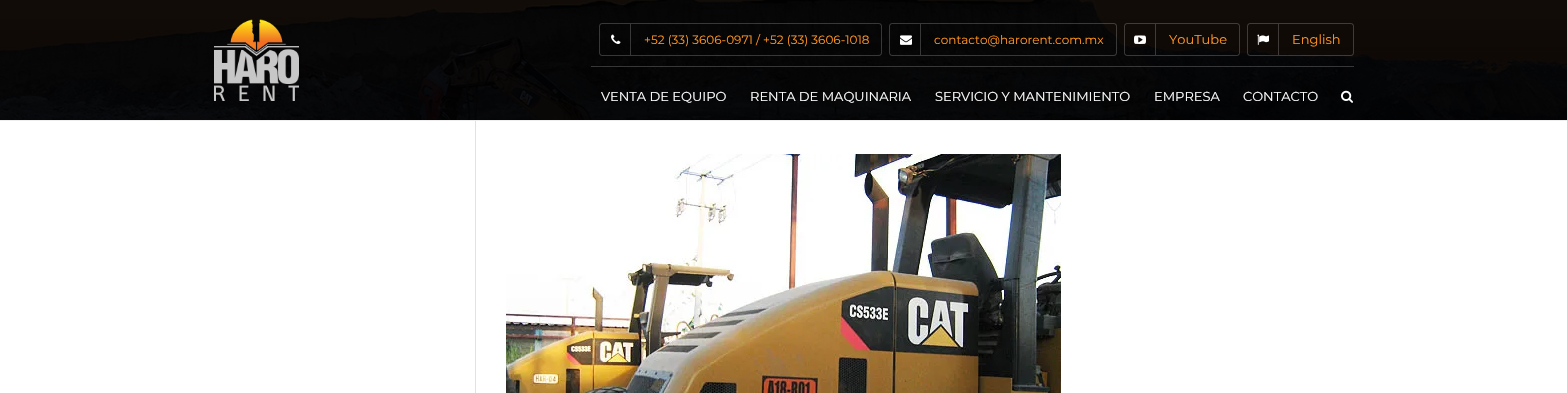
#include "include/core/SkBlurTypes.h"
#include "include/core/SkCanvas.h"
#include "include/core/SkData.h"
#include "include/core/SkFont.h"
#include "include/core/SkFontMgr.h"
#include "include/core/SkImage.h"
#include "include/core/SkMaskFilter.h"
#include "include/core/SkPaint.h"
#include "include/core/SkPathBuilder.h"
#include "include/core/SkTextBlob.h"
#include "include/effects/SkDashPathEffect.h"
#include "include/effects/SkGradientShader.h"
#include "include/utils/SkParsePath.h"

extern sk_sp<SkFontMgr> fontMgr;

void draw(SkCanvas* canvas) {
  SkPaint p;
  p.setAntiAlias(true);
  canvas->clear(SK_ColorWHITE);
  canvas->drawImageRect(SkImages::DeferredFromEncodedData(SkData::MakeFromFileName("images/1.png")), SkRect::MakeLTRB(0, 0, 1567, 120), SkSamplingOptions());
  p.setColor(SkColorSetRGB(238, 238, 238));
  canvas->drawRect(SkRect::MakeLTRB(0, 120, 1567, 121), p);
  p.setColor(SkColorSetRGB(225, 226, 226));
  canvas->drawRect(SkRect::MakeLTRB(475, 121, 476, 393), p);
  canvas->drawImageRect(SkImages::DeferredFromEncodedData(SkData::MakeFromFileName("images/2.png")), SkRect::MakeLTRB(506, 154, 1061, 393), SkSamplingOptions());
  canvas->drawImageRect(SkImages::DeferredFromEncodedData(SkData::MakeFromFileName("images/3.png")), SkRect::MakeLTRB(214, 19, 299, 101), SkSamplingOptions());
  p.setColor(SkColorSetARGB(51, 255, 255, 255));
  canvas->drawRect(SkRect::MakeLTRB(591, 66, 1354, 67), p);
  p.setStyle(SkPaint::kStroke_Style);
  p.setStrokeWidth(1);
  canvas->drawRoundRect(SkRect::MakeLTRB(599.5f, 23.5f, 881.5f, 55.5f), 2.5f, 2.5f, p);
  canvas->drawImageRect(SkImages::DeferredFromEncodedData(SkData::MakeFromFileName("images/4.png")), SkRect::MakeLTRB(611, 34, 621, 44), SkSamplingOptions());
  p.setStyle(SkPaint::kFill_Style);
  canvas->drawRect(SkRect::MakeLTRB(630, 24, 631, 55), p);
  p.setStyle(SkPaint::kStroke_Style);
  canvas->drawRoundRect(SkRect::MakeLTRB(889.5f, 23.5f, 1116.5f, 55.5f), 2.5f, 2.5f, p);
  canvas->drawImageRect(SkImages::DeferredFromEncodedData(SkData::MakeFromFileName("images/5.png")), SkRect::MakeLTRB(900, 35, 912, 45), SkSamplingOptions());
  p.setStyle(SkPaint::kFill_Style);
  p.setColor(SkColorSetRGB(56, 55, 56));
  canvas->drawRect(SkRect::MakeLTRB(920, 24, 921, 55), p);
  p.setStyle(SkPaint::kStroke_Style);
  p.setColor(SkColorSetARGB(51, 255, 255, 255));
  canvas->drawRoundRect(SkRect::MakeLTRB(1124.5f, 23.5f, 1239.5f, 55.5f), 2.5f, 2.5f, p);
  canvas->drawImageRect(SkImages::DeferredFromEncodedData(SkData::MakeFromFileName("images/6.png")), SkRect::MakeLTRB(1134, 35, 1146, 44), SkSamplingOptions());
  p.setStyle(SkPaint::kFill_Style);
  canvas->drawRect(SkRect::MakeLTRB(1155, 24, 1156, 55), p);
  p.setStyle(SkPaint::kStroke_Style);
  canvas->drawRoundRect(SkRect::MakeLTRB(1247.5f, 23.5f, 1353.5f, 55.5f), 2.5f, 2.5f, p);
  canvas->drawImageRect(SkImages::DeferredFromEncodedData(SkData::MakeFromFileName("images/7.png")), SkRect::MakeLTRB(1257, 34, 1269, 45), SkSamplingOptions());
  p.setStyle(SkPaint::kFill_Style);
  p.setColor(SkColorSetRGB(64, 59, 56));
  canvas->drawRect(SkRect::MakeLTRB(1278, 24, 1279, 55), p);
  canvas->drawImageRect(SkImages::DeferredFromEncodedData(SkData::MakeFromFileName("images/8.png")), SkRect::MakeLTRB(1341, 90, 1353, 103), SkSamplingOptions());
  SkFont font1(fontMgr->matchFamilyStyle("Montserrat", SkFontStyle::Normal()), 12);
  font1.setSubpixel(true);
  p.setColor(SkColorSetRGB(255, 147, 31));
  canvas->drawString("+52 (33) 3606-0971 / +52 (33) 3606-1018", 644, 44, font1, p);
  canvas->drawString("contacto@harorent.com.mx", 934, 44, font1, p);
  SkFont font2(fontMgr->matchFamilyStyle("Montserrat", SkFontStyle::Normal()), 13);
  font2.setSubpixel(true);
  canvas->drawString("YouTube", 1169, 44, font2, p);
  canvas->drawString("English", 1292, 44, font2, p);
  p.setColor(SK_ColorWHITE);
  canvas->drawString("VENTA DE EQUIPO", 601, 101, font2, p);
  canvas->drawString("RENTA DE MAQUINARIA", 750, 101, font2, p);
  canvas->drawString("SERVICIO Y MANTENIMIENTO", 935, 101, font2, p);
  canvas->drawString("EMPRESA", 1154, 101, font2, p);
  canvas->drawString("CONTACTO", 1243, 101, font2, p);
}
